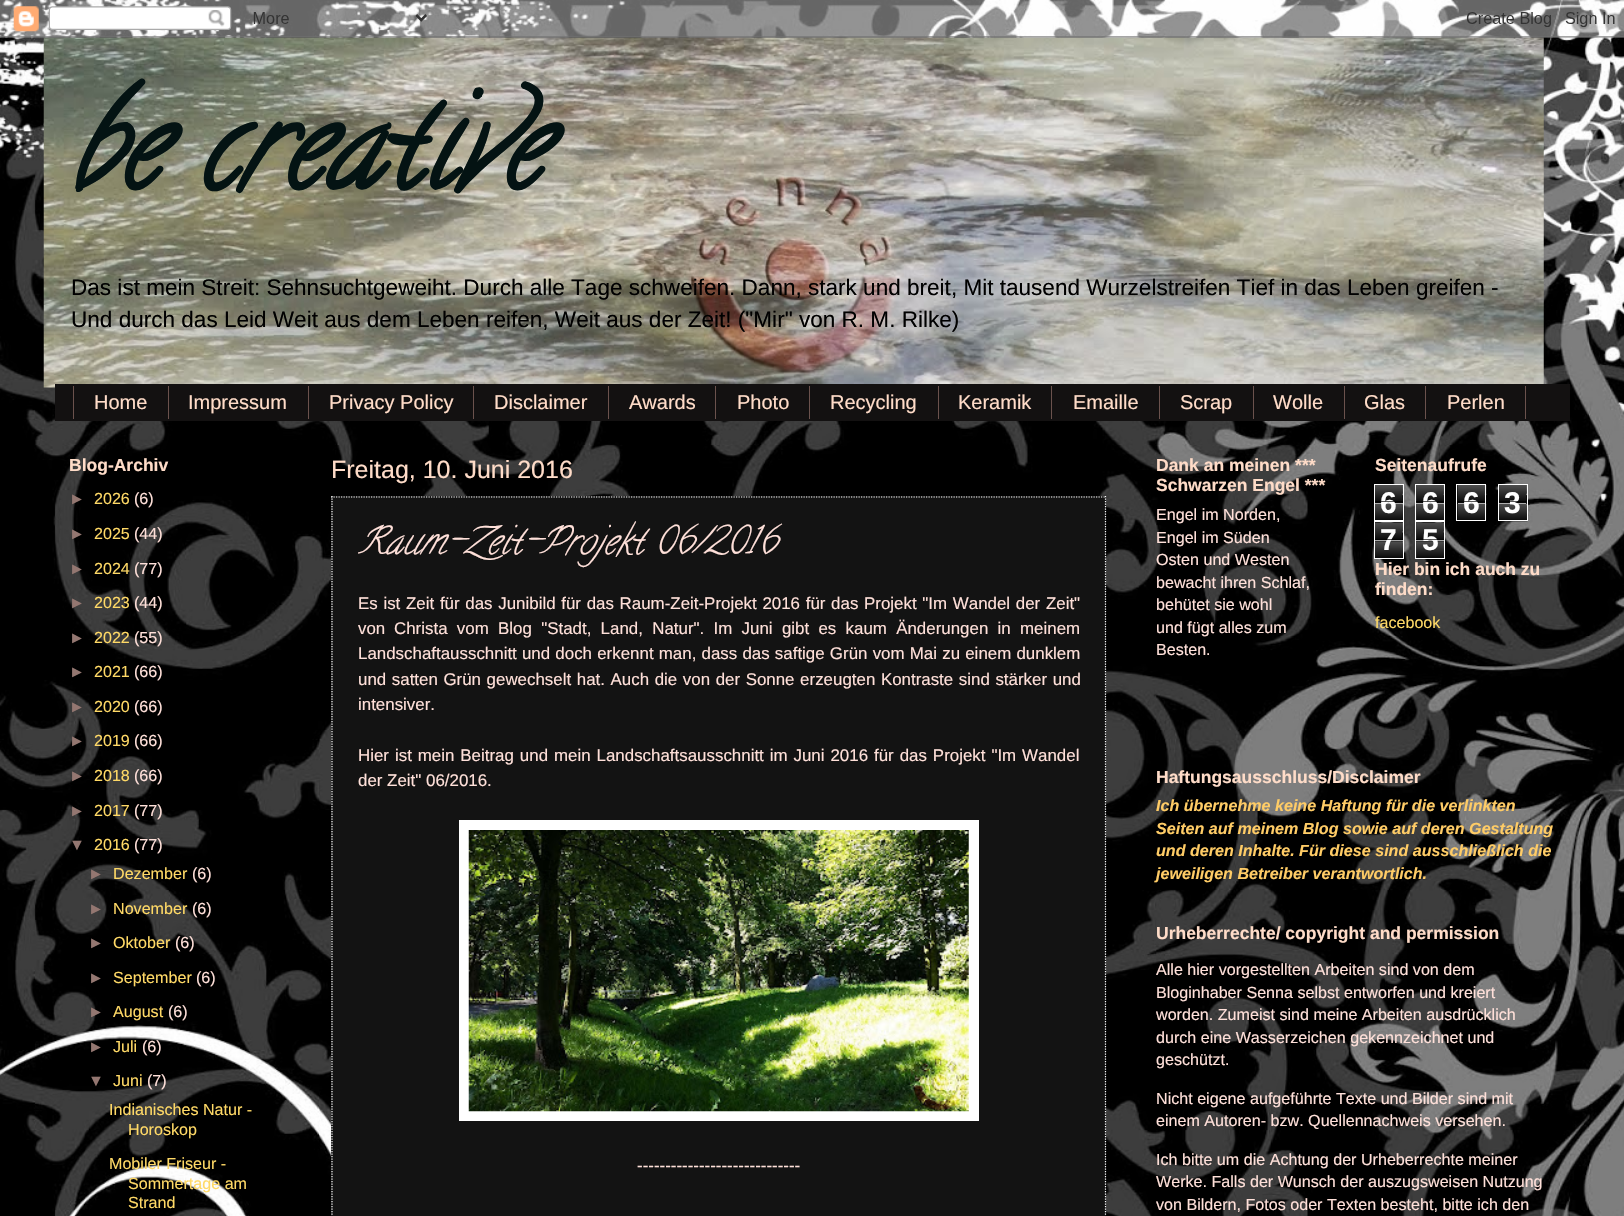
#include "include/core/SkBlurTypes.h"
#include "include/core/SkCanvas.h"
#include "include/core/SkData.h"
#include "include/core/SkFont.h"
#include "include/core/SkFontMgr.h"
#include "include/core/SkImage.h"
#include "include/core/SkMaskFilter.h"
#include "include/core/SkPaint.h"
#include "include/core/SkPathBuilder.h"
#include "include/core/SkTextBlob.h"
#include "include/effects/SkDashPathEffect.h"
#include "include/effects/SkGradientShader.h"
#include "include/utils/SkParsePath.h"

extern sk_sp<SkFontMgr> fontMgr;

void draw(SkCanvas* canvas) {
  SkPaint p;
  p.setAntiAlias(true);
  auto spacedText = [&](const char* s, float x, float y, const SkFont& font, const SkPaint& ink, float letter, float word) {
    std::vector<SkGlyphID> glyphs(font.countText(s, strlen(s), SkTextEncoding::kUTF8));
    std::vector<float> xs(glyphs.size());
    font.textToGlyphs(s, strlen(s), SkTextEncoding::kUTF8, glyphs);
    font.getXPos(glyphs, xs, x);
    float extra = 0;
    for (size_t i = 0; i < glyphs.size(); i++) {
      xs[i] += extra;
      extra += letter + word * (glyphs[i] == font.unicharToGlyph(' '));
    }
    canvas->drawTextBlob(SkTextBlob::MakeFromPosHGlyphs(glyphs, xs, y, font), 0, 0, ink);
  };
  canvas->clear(SK_ColorWHITE);
  canvas->drawImageRect(SkImages::DeferredFromEncodedData(SkData::MakeFromFileName("images/1.png")), SkRect::MakeLTRB(0, 0, 1624, 1216), SkSamplingOptions());
  canvas->drawImageRect(SkImages::DeferredFromEncodedData(SkData::MakeFromFileName("images/3.png")), SkRect::MakeLTRB(43, 37, 1544, 388), SkSamplingOptions());
  canvas->drawImageRect(SkImages::DeferredFromEncodedData(SkData::MakeFromFileName("images/2.png")), SkRect::MakeLTRB(0, 0, 1624, 38), SkSamplingOptions());
  p.setColor(SkColorSetRGB(19, 17, 17));
  canvas->drawRect(SkRect::MakeLTRB(55, 384, 1570, 421), p);
  p.setColor(SkColorSetRGB(107, 82, 77));
  canvas->drawRect(SkRect::MakeLTRB(168, 386, 169, 419), p);
  canvas->drawRect(SkRect::MakeLTRB(73, 386, 74, 419), p);
  canvas->drawRect(SkRect::MakeLTRB(308, 386, 309, 419), p);
  canvas->drawRect(SkRect::MakeLTRB(473, 386, 474, 419), p);
  canvas->drawRect(SkRect::MakeLTRB(608, 386, 609, 419), p);
  canvas->drawRect(SkRect::MakeLTRB(715, 386, 716, 419), p);
  canvas->drawRect(SkRect::MakeLTRB(809, 386, 810, 419), p);
  canvas->drawRect(SkRect::MakeLTRB(938, 386, 939, 419), p);
  canvas->drawRect(SkRect::MakeLTRB(1051, 386, 1052, 419), p);
  canvas->drawRect(SkRect::MakeLTRB(1159, 386, 1160, 419), p);
  canvas->drawRect(SkRect::MakeLTRB(1253, 386, 1254, 419), p);
  canvas->drawRect(SkRect::MakeLTRB(1344, 386, 1345, 419), p);
  canvas->drawRect(SkRect::MakeLTRB(1425, 386, 1426, 419), p);
  canvas->drawRect(SkRect::MakeLTRB(1525, 386, 1526, 419), p);
  p.setColor(SkColorSetRGB(24, 24, 24));
  canvas->drawRect(SkRect::MakeLTRB(331, 496, 1105, 1216), p);
  p.setColor(SkColorSetRGB(19, 19, 19));
  canvas->drawRect(SkRect::MakeLTRB(332, 497, 1106, 1216), p);
  p.setStyle(SkPaint::kStroke_Style);
  p.setStrokeWidth(1.2f);
  p.setColor(SK_ColorWHITE);
  p.setPathEffect(SkDashPathEffect::Make({{1.25f, 1.25f}}, 0));
  canvas->drawPath(SkPathBuilder().moveTo(331, 497).lineTo(1106, 497).detach(), p);
  p.setPathEffect(nullptr);
  p.setPathEffect(SkDashPathEffect::Make({{1.25f, 1.25f}}, 0));
  canvas->drawPath(SkPathBuilder().moveTo(1105.5f, 496).lineTo(1105.5f, 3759).detach(), p);
  p.setPathEffect(nullptr);
  p.setPathEffect(SkDashPathEffect::Make({{1.25f, 1.25f}}, 0));
  canvas->drawPath(SkPathBuilder().moveTo(332, 496).lineTo(332, 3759).detach(), p);
  p.setPathEffect(nullptr);
  p.setStyle(SkPaint::kFill_Style);
  canvas->drawRect(SkRect::MakeLTRB(459, 820, 979, 1121), p);
  canvas->drawImageRect(SkImages::DeferredFromEncodedData(SkData::MakeFromFileName("images/4.png")), SkRect::MakeLTRB(468, 830, 969, 1112), SkSamplingOptions());
  canvas->drawImageRect(SkImages::DeferredFromEncodedData(SkData::MakeFromFileName("images/5.png")), SkRect::MakeLTRB(1375, 485, 1403, 520), SkSamplingOptions());
  p.setStyle(SkPaint::kStroke_Style);
  p.setStrokeWidth(1);
  canvas->drawRect(SkRect::MakeLTRB(1374.5f, 484.5f, 1403.5f, 520.5f), p);
  canvas->drawImageRect(SkImages::DeferredFromEncodedData(SkData::MakeFromFileName("images/6.png")), SkRect::MakeLTRB(1416, 485, 1444, 520), SkSamplingOptions());
  canvas->drawRect(SkRect::MakeLTRB(1415.5f, 484.5f, 1444.5f, 520.5f), p);
  canvas->drawImageRect(SkImages::DeferredFromEncodedData(SkData::MakeFromFileName("images/7.png")), SkRect::MakeLTRB(1457, 485, 1487, 521), SkSamplingOptions());
  canvas->drawRect(SkRect::MakeLTRB(1456.5f, 484.5f, 1485.5f, 520.5f), p);
  canvas->drawImageRect(SkImages::DeferredFromEncodedData(SkData::MakeFromFileName("images/8.png")), SkRect::MakeLTRB(1498, 485, 1528, 522), SkSamplingOptions());
  canvas->drawRect(SkRect::MakeLTRB(1498.5f, 484.5f, 1527.5f, 520.5f), p);
  canvas->drawImageRect(SkImages::DeferredFromEncodedData(SkData::MakeFromFileName("images/9.png")), SkRect::MakeLTRB(1375, 522, 1403, 558), SkSamplingOptions());
  canvas->drawRect(SkRect::MakeLTRB(1374.5f, 521.5f, 1403.5f, 558.5f), p);
  canvas->drawImageRect(SkImages::DeferredFromEncodedData(SkData::MakeFromFileName("images/10.png")), SkRect::MakeLTRB(1416, 522, 1444, 558), SkSamplingOptions());
  canvas->drawRect(SkRect::MakeLTRB(1415.5f, 521.5f, 1444.5f, 558.5f), p);
  SkFont font1(fontMgr->matchFamilyStyle("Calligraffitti", SkFontStyle::BoldItalic()), 125);
  font1.setSubpixel(true);
  p.setStyle(SkPaint::kFill_Style);
  p.setColor(SkColorSetRGB(4, 19, 19));
  canvas->drawString("be creative", 69, 185, font1, p);
  SkFont font2(fontMgr->matchFamilyStyle("Liberation Sans", SkFontStyle::Normal()), 22.55f);
  font2.setSubpixel(true);
  p.setColor(SK_ColorBLACK);
  canvas->drawString("Das ist mein Streit: Sehnsuchtgeweiht. Durch alle Tage schweifen. Dann, stark und breit, Mit tausend Wurzelstreifen Tief in das Leben greifen -", 71, 295, font2, p);
  canvas->drawString("Und durch das Leid Weit aus dem Leben reifen, Weit aus der Zeit! (\"Mir\" von R. M. Rilke)", 71, 327, font2, p);
  SkFont font3(fontMgr->matchFamilyStyle("Liberation Sans", SkFontStyle::Normal()), 20);
  font3.setSubpixel(true);
  p.setColor(SkColorSetRGB(255, 220, 200));
  canvas->drawString("Home", 94, 409, font3, p);
  canvas->drawString("Impressum", 188, 409, font3, p);
  canvas->drawString("Privacy Policy", 329, 409, font3, p);
  canvas->drawString("Disclaimer", 494, 409, font3, p);
  canvas->drawString("Awards", 629, 409, font3, p);
  canvas->drawString("Photo", 737, 409, font3, p);
  canvas->drawString("Recycling", 830, 409, font3, p);
  canvas->drawString("Keramik", 958, 409, font3, p);
  canvas->drawString("Emaille", 1073, 409, font3, p);
  canvas->drawString("Scrap", 1180, 409, font3, p);
  canvas->drawString("Wolle", 1273, 409, font3, p);
  canvas->drawString("Glas", 1364, 409, font3, p);
  canvas->drawString("Perlen", 1447, 409, font3, p);
  SkFont font4(fontMgr->matchFamilyStyle("Liberation Sans", SkFontStyle::Bold()), 17.5f);
  font4.setSubpixel(true);
  canvas->drawString("Blog-Archiv", 69, 471, font4, p);
  SkFont font5(fontMgr->matchFamilyStyle("Liberation Sans", SkFontStyle::Normal()), 16.1f);
  font5.setSubpixel(true);
  p.setColor(SkColorSetRGB(148, 119, 113));
  canvas->drawString("►", 69, 504, font5, p);
  p.setColor(SkColorSetRGB(255, 217, 102));
  canvas->drawString("2026", 94, 504, font5, p);
  p.setColor(SkColorSetRGB(255, 224, 217));
  canvas->drawString("(6)", 134, 504, font5, p);
  p.setColor(SkColorSetRGB(148, 119, 113));
  canvas->drawString("►", 69, 539, font5, p);
  p.setColor(SkColorSetRGB(255, 217, 102));
  canvas->drawString("2025", 94, 539, font5, p);
  p.setColor(SkColorSetRGB(255, 224, 217));
  canvas->drawString("(44)", 134, 539, font5, p);
  p.setColor(SkColorSetRGB(148, 119, 113));
  canvas->drawString("►", 69, 574, font5, p);
  p.setColor(SkColorSetRGB(255, 217, 102));
  canvas->drawString("2024", 94, 574, font5, p);
  p.setColor(SkColorSetRGB(255, 224, 217));
  canvas->drawString("(77)", 134, 574, font5, p);
  p.setColor(SkColorSetRGB(148, 119, 113));
  canvas->drawString("►", 69, 608, font5, p);
  p.setColor(SkColorSetRGB(255, 217, 102));
  canvas->drawString("2023", 94, 608, font5, p);
  p.setColor(SkColorSetRGB(255, 224, 217));
  canvas->drawString("(44)", 134, 608, font5, p);
  p.setColor(SkColorSetRGB(148, 119, 113));
  canvas->drawString("►", 69, 643, font5, p);
  p.setColor(SkColorSetRGB(255, 217, 102));
  canvas->drawString("2022", 94, 643, font5, p);
  p.setColor(SkColorSetRGB(255, 224, 217));
  canvas->drawString("(55)", 134, 643, font5, p);
  p.setColor(SkColorSetRGB(148, 119, 113));
  canvas->drawString("►", 69, 677, font5, p);
  p.setColor(SkColorSetRGB(255, 217, 102));
  canvas->drawString("2021", 94, 677, font5, p);
  p.setColor(SkColorSetRGB(255, 224, 217));
  canvas->drawString("(66)", 134, 677, font5, p);
  p.setColor(SkColorSetRGB(148, 119, 113));
  canvas->drawString("►", 69, 712, font5, p);
  p.setColor(SkColorSetRGB(255, 217, 102));
  canvas->drawString("2020", 94, 712, font5, p);
  p.setColor(SkColorSetRGB(255, 224, 217));
  canvas->drawString("(66)", 134, 712, font5, p);
  p.setColor(SkColorSetRGB(148, 119, 113));
  canvas->drawString("►", 69, 746, font5, p);
  p.setColor(SkColorSetRGB(255, 217, 102));
  canvas->drawString("2019", 94, 746, font5, p);
  p.setColor(SkColorSetRGB(255, 224, 217));
  canvas->drawString("(66)", 134, 746, font5, p);
  p.setColor(SkColorSetRGB(148, 119, 113));
  canvas->drawString("►", 69, 781, font5, p);
  p.setColor(SkColorSetRGB(255, 217, 102));
  canvas->drawString("2018", 94, 781, font5, p);
  p.setColor(SkColorSetRGB(255, 224, 217));
  canvas->drawString("(66)", 134, 781, font5, p);
  p.setColor(SkColorSetRGB(148, 119, 113));
  canvas->drawString("►", 69, 816, font5, p);
  p.setColor(SkColorSetRGB(255, 217, 102));
  canvas->drawString("2017", 94, 816, font5, p);
  p.setColor(SkColorSetRGB(255, 224, 217));
  canvas->drawString("(77)", 134, 816, font5, p);
  p.setColor(SkColorSetRGB(148, 119, 113));
  canvas->drawString("▼", 69, 850, font5, p);
  p.setColor(SkColorSetRGB(255, 217, 102));
  canvas->drawString("2016", 94, 850, font5, p);
  p.setColor(SkColorSetRGB(255, 224, 217));
  canvas->drawString("(77)", 134, 850, font5, p);
  p.setColor(SkColorSetRGB(148, 119, 113));
  canvas->drawString("►", 88, 879, font5, p);
  p.setColor(SkColorSetRGB(255, 217, 102));
  canvas->drawString("Dezember", 113, 879, font5, p);
  p.setColor(SkColorSetRGB(255, 224, 217));
  canvas->drawString("(6)", 192, 879, font5, p);
  p.setColor(SkColorSetRGB(148, 119, 113));
  canvas->drawString("►", 88, 914, font5, p);
  p.setColor(SkColorSetRGB(255, 217, 102));
  canvas->drawString("November", 113, 914, font5, p);
  p.setColor(SkColorSetRGB(255, 224, 217));
  canvas->drawString("(6)", 192, 914, font5, p);
  p.setColor(SkColorSetRGB(148, 119, 113));
  canvas->drawString("►", 88, 948, font5, p);
  p.setColor(SkColorSetRGB(255, 217, 102));
  canvas->drawString("Oktober", 113, 948, font5, p);
  p.setColor(SkColorSetRGB(255, 224, 217));
  canvas->drawString("(6)", 175, 948, font5, p);
  p.setColor(SkColorSetRGB(148, 119, 113));
  canvas->drawString("►", 88, 983, font5, p);
  p.setColor(SkColorSetRGB(255, 217, 102));
  canvas->drawString("September", 113, 983, font5, p);
  p.setColor(SkColorSetRGB(255, 224, 217));
  canvas->drawString("(6)", 196, 983, font5, p);
  p.setColor(SkColorSetRGB(148, 119, 113));
  canvas->drawString("►", 88, 1017, font5, p);
  p.setColor(SkColorSetRGB(255, 217, 102));
  canvas->drawString("August", 113, 1017, font5, p);
  p.setColor(SkColorSetRGB(255, 224, 217));
  canvas->drawString("(6)", 168, 1017, font5, p);
  p.setColor(SkColorSetRGB(148, 119, 113));
  canvas->drawString("►", 88, 1052, font5, p);
  p.setColor(SkColorSetRGB(255, 217, 102));
  canvas->drawString("Juli", 113, 1052, font5, p);
  p.setColor(SkColorSetRGB(255, 224, 217));
  canvas->drawString("(6)", 142, 1052, font5, p);
  p.setColor(SkColorSetRGB(148, 119, 113));
  canvas->drawString("▼", 88, 1086, font5, p);
  p.setColor(SkColorSetRGB(255, 217, 102));
  canvas->drawString("Juni", 113, 1086, font5, p);
  p.setColor(SkColorSetRGB(255, 224, 217));
  canvas->drawString("(7)", 147, 1086, font5, p);
  p.setColor(SkColorSetRGB(255, 217, 102));
  canvas->drawString("Indianisches Natur -", 109, 1115, font5, p);
  canvas->drawString("Horoskop", 128, 1135, font5, p);
  canvas->drawString("Mobiler Friseur -", 109, 1169, font5, p);
  canvas->drawString("Sommertage am", 128, 1189, font5, p);
  canvas->drawString("Strand", 128, 1208, font5, p);
  SkFont font6(fontMgr->matchFamilyStyle("Liberation Sans", SkFontStyle::Normal()), 25);
  font6.setSubpixel(true);
  p.setColor(SkColorSetRGB(255, 220, 200));
  canvas->drawString("Freitag, 10. Juni 2016", 331, 478, font6, p);
  SkFont font7(fontMgr->matchFamilyStyle("Calligraffitti", SkFontStyle::Italic()), 37.5f);
  font7.setSubpixel(true);
  p.setColor(SkColorSetRGB(255, 224, 217));
  canvas->drawString("Raum-Zeit-Projekt 06/2016", 358, 553, font7, p);
  SkFont font8(fontMgr->matchFamilyStyle("Liberation Sans", SkFontStyle::Normal()), 16.9f);
  font8.setSubpixel(true);
  spacedText("Es ist Zeit für das Junibild für das Raum-Zeit-Projekt 2016 für das Projekt \"Im Wandel der Zeit\"", 358, 609, font8, p, 0, 1);
  canvas->drawString("von", 358, 634, font8, p);
  spacedText("Christa vom Blog \"Stadt, Land, Natur\". Im Juni gibt es kaum Änderungen in meinem", 394, 634, font8, p, 0, 4.6f);
  spacedText("Landschaftausschnitt und doch erkennt man, dass das saftige Grün vom Mai zu einem dunklem", 358, 659, font8, p, 0, 0.5f);
  spacedText("und satten Grün gewechselt hat. Auch die von der Sonne erzeugten Kontraste sind stärker und", 358, 685, font8, p, 0, 0.9f);
  canvas->drawString("intensiver.", 358, 710, font8, p);
  spacedText("Hier ist mein Beitrag und mein Landschaftsausschnitt im Juni 2016 für das Projekt \"Im Wandel", 358, 761, font8, p, 0, 1.25f);
  canvas->drawString("der Zeit\" 06/2016.", 358, 786, font8, p);
  canvas->drawString("-----------------------------", 637, 1171, font8, p);
  p.setColor(SkColorSetRGB(255, 220, 200));
  canvas->drawString("Dank an meinen ***", 1156, 471, font4, p);
  canvas->drawString("Schwarzen Engel ***", 1156, 491, font4, p);
  p.setColor(SkColorSetRGB(255, 224, 217));
  canvas->drawString("Engel im Norden,", 1156, 520, font5, p);
  canvas->drawString("Engel im Süden", 1156, 543, font5, p);
  canvas->drawString("Osten und Westen", 1156, 565, font5, p);
  canvas->drawString("bewacht ihren Schlaf,", 1156, 588, font5, p);
  canvas->drawString("behütet sie wohl", 1156, 610, font5, p);
  canvas->drawString("und fügt alles zum", 1156, 633, font5, p);
  canvas->drawString("Besten.", 1156, 655, font5, p);
  p.setColor(SkColorSetRGB(255, 220, 200));
  canvas->drawString("Seitenaufrufe", 1375, 471, font4, p);
  SkFont font9(fontMgr->matchFamilyStyle("Liberation Sans", SkFontStyle::Bold()), 30);
  font9.setSubpixel(true);
  p.setColor(SK_ColorWHITE);
  canvas->drawString("6", 1380, 513, font9, p);
  p.setColor(SkColorSetARGB(166, 0, 0, 0));
  canvas->drawRect(SkRect::MakeLTRB(1375, 501, 1403, 502), p);
  p.setColor(SkColorSetARGB(166, 255, 255, 255));
  canvas->drawRect(SkRect::MakeLTRB(1375, 503, 1403, 504), p);
  p.setColor(SK_ColorWHITE);
  canvas->drawString("6", 1422, 513, font9, p);
  p.setColor(SkColorSetARGB(166, 0, 0, 0));
  canvas->drawRect(SkRect::MakeLTRB(1416, 501, 1444, 502), p);
  p.setColor(SkColorSetARGB(166, 255, 255, 255));
  canvas->drawRect(SkRect::MakeLTRB(1416, 503, 1444, 504), p);
  p.setColor(SK_ColorWHITE);
  canvas->drawString("6", 1463, 513, font9, p);
  p.setColor(SkColorSetARGB(166, 0, 0, 0));
  canvas->drawRect(SkRect::MakeLTRB(1458, 501, 1485, 502), p);
  p.setColor(SkColorSetARGB(166, 255, 255, 255));
  canvas->drawRect(SkRect::MakeLTRB(1458, 503, 1485, 504), p);
  p.setColor(SK_ColorWHITE);
  canvas->drawString("3", 1504, 513, font9, p);
  p.setColor(SkColorSetARGB(166, 0, 0, 0));
  canvas->drawRect(SkRect::MakeLTRB(1499, 501, 1526, 502), p);
  p.setColor(SkColorSetARGB(166, 255, 255, 255));
  canvas->drawRect(SkRect::MakeLTRB(1499, 503, 1526, 504), p);
  p.setColor(SK_ColorWHITE);
  canvas->drawString("7", 1380, 550, font9, p);
  p.setColor(SkColorSetARGB(166, 0, 0, 0));
  canvas->drawRect(SkRect::MakeLTRB(1375, 539, 1403, 540), p);
  p.setColor(SkColorSetARGB(166, 255, 255, 255));
  canvas->drawRect(SkRect::MakeLTRB(1375, 540, 1403, 541), p);
  p.setColor(SK_ColorWHITE);
  canvas->drawString("5", 1422, 550, font9, p);
  p.setColor(SkColorSetARGB(166, 0, 0, 0));
  canvas->drawRect(SkRect::MakeLTRB(1416, 539, 1444, 540), p);
  p.setColor(SkColorSetARGB(166, 255, 255, 255));
  canvas->drawRect(SkRect::MakeLTRB(1416, 540, 1444, 541), p);
  p.setColor(SkColorSetRGB(255, 220, 200));
  canvas->drawString("Hier bin ich auch zu", 1375, 575, font4, p);
  canvas->drawString("finden:", 1375, 595, font4, p);
  p.setColor(SkColorSetRGB(255, 217, 102));
  canvas->drawString("facebook", 1375, 628, font5, p);
  p.setColor(SkColorSetRGB(255, 220, 200));
  canvas->drawString("Haftungsausschluss/Disclaimer", 1156, 783, font4, p);
  SkFont font10(fontMgr->matchFamilyStyle("Liberation Sans", SkFontStyle::BoldItalic()), 16.1f);
  font10.setSubpixel(true);
  p.setColor(SkColorSetRGB(255, 204, 102));
  canvas->drawString("Ich übernehme keine Haftung für die verlinkten", 1156, 811, font10, p);
  canvas->drawString("Seiten auf meinem Blog sowie auf deren Gestaltung", 1156, 834, font10, p);
  canvas->drawString("und deren Inhalte. Für diese sind ausschließlich die", 1156, 856, font10, p);
  canvas->drawString("jeweiligen Betreiber verantwortlich.", 1156, 879, font10, p);
  p.setColor(SkColorSetRGB(255, 220, 200));
  canvas->drawString("Urheberrechte/ copyright and permission", 1156, 939, font4, p);
  p.setColor(SkColorSetRGB(255, 224, 217));
  canvas->drawString("Alle hier vorgestellten Arbeiten sind von dem", 1156, 975, font5, p);
  canvas->drawString("Bloginhaber Senna selbst entworfen und kreiert", 1156, 998, font5, p);
  canvas->drawString("worden. Zumeist sind meine Arbeiten ausdrücklich", 1156, 1020, font5, p);
  canvas->drawString("durch eine Wasserzeichen gekennzeichnet und", 1156, 1043, font5, p);
  canvas->drawString("geschützt.", 1156, 1065, font5, p);
  canvas->drawString("Nicht eigene aufgeführte Texte und Bilder sind mit", 1156, 1104, font5, p);
  canvas->drawString("einem Autoren- bzw. Quellennachweis versehen.", 1156, 1126, font5, p);
  canvas->drawString("Ich bitte um die Achtung der Urheberrechte meiner", 1156, 1165, font5, p);
  canvas->drawString("Werke. Falls der Wunsch der auszugsweisen Nutzung", 1156, 1187, font5, p);
  canvas->drawString("von Bildern, Fotos oder Texten besteht, bitte ich den", 1156, 1210, font5, p);
}
